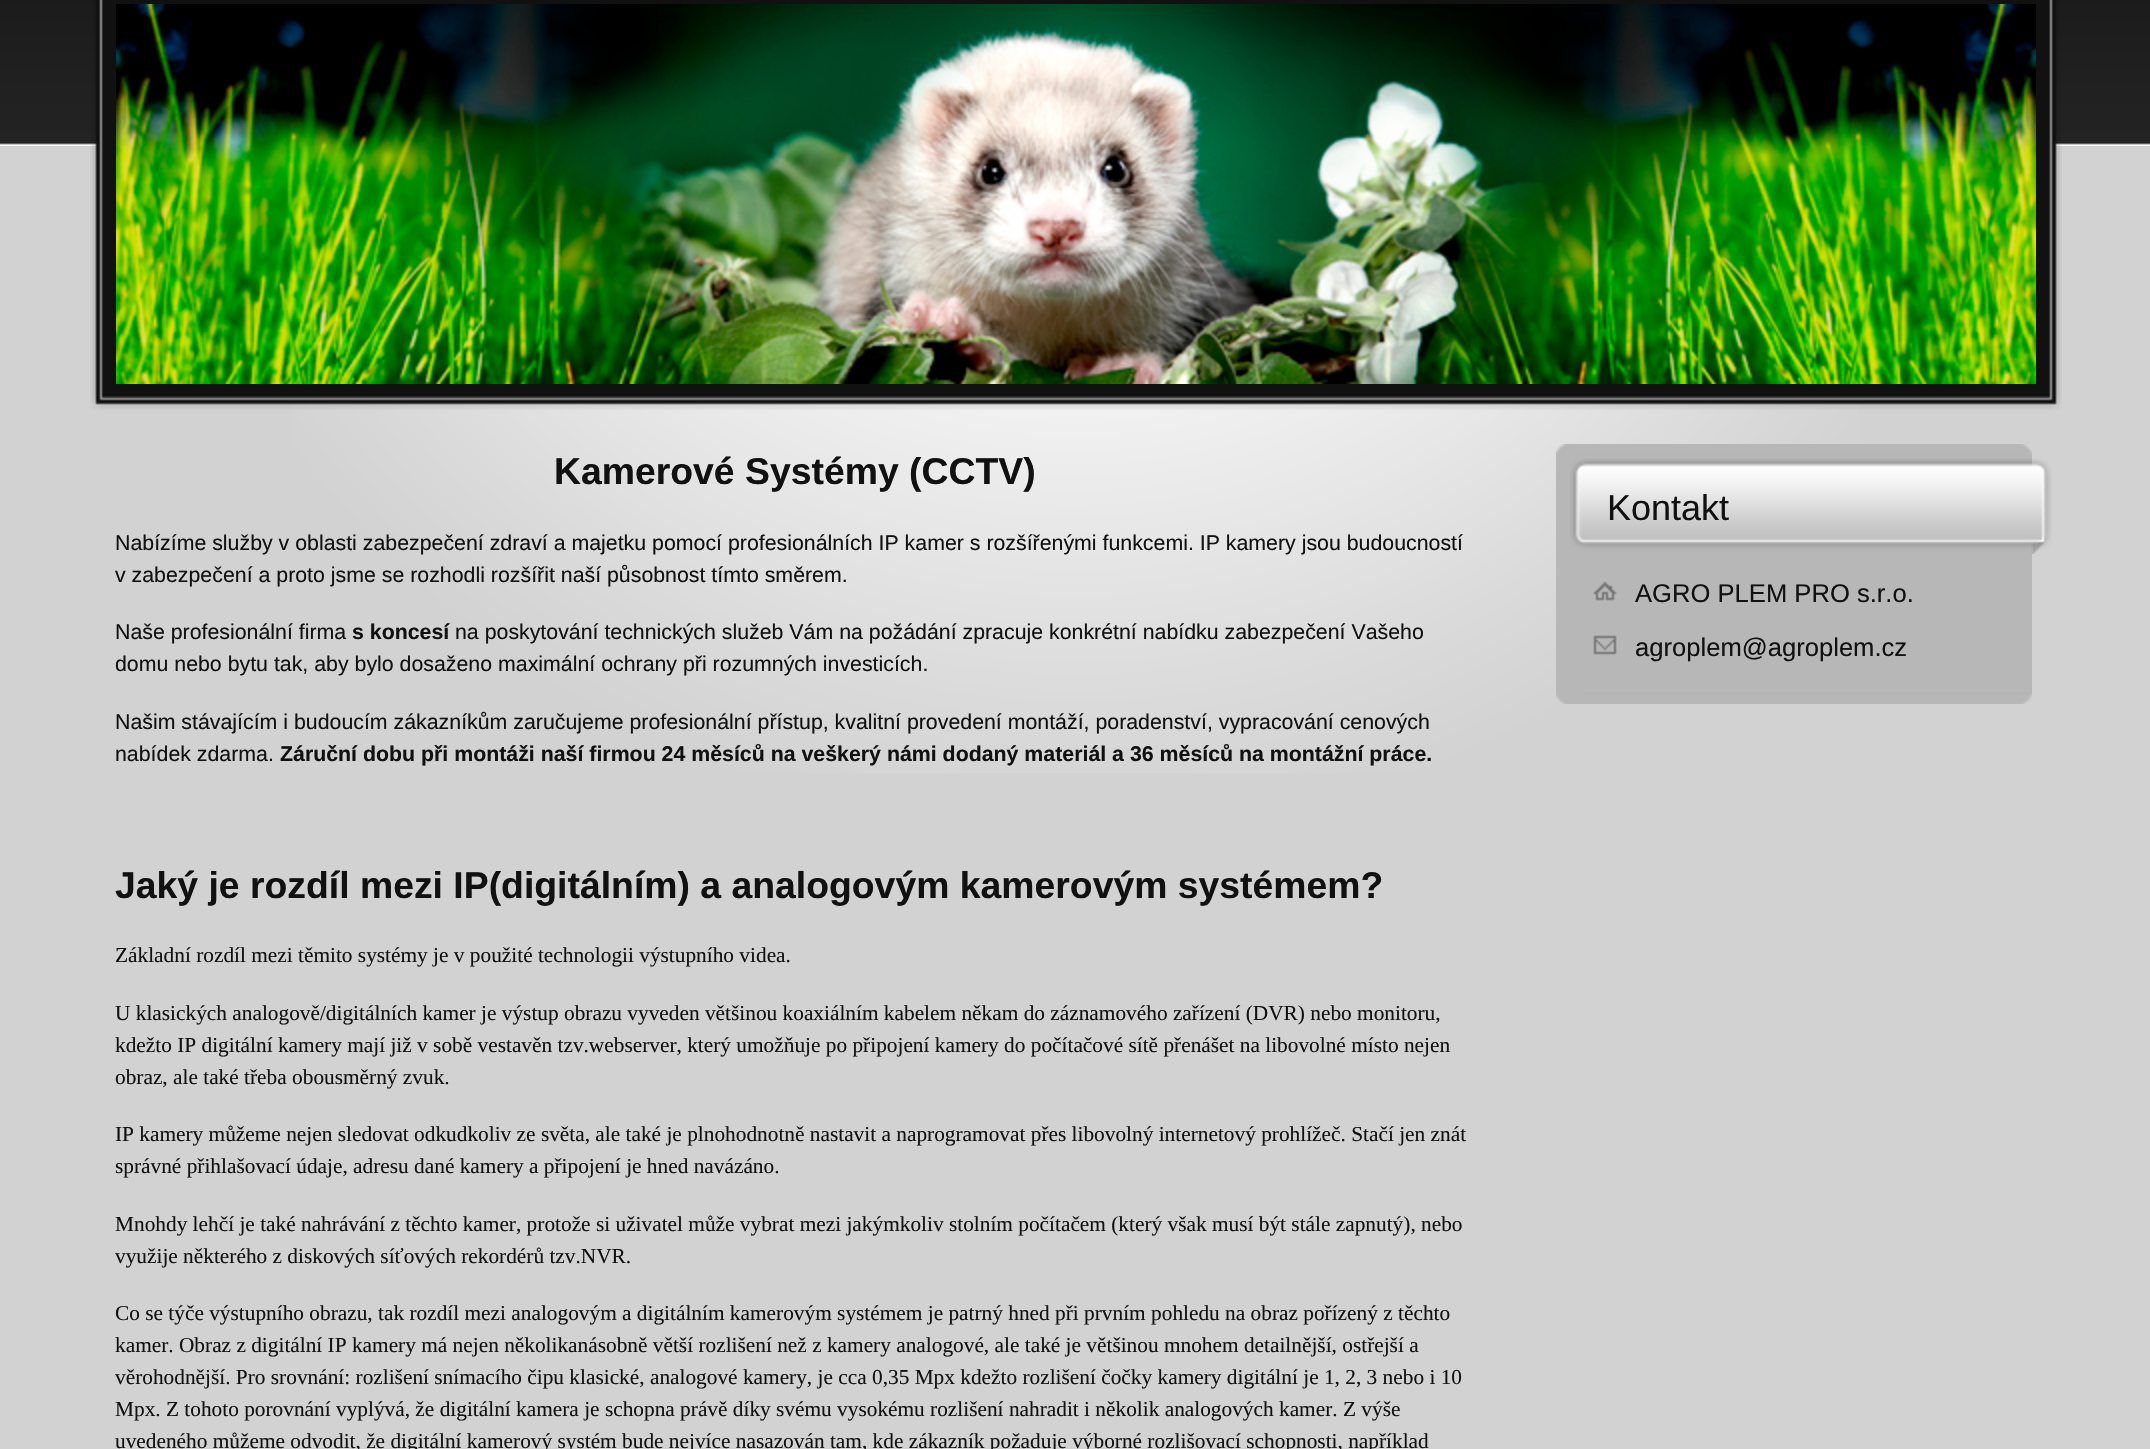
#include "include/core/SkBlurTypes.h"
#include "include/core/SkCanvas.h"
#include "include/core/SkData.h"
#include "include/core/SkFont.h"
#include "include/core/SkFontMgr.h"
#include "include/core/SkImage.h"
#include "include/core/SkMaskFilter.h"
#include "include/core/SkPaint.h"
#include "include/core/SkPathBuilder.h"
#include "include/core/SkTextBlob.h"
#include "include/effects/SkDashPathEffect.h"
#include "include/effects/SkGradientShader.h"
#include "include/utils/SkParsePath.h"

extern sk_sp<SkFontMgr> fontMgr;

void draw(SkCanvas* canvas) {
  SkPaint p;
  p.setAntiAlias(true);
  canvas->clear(SkColorSetRGB(210, 210, 210));
  canvas->drawImageRect(SkImages::DeferredFromEncodedData(SkData::MakeFromFileName("images/1.png")), SkRect::MakeLTRB(0, 0, 2150, 146), SkSamplingOptions());
  canvas->drawImageRect(SkImages::DeferredFromEncodedData(SkData::MakeFromFileName("images/2.png")), SkRect::MakeLTRB(76, 0, 2076, 146), SkSamplingOptions());
  canvas->drawImageRect(SkImages::DeferredFromEncodedData(SkData::MakeFromFileName("images/3.png")), SkRect::MakeLTRB(291, 401, 1859, 773), SkSamplingOptions());
  canvas->drawImageRect(SkImages::DeferredFromEncodedData(SkData::MakeFromFileName("images/4.png")), SkRect::MakeLTRB(90, 0, 2062, 410), SkSamplingOptions());
  canvas->drawImageRect(SkImages::DeferredFromEncodedData(SkData::MakeFromFileName("images/5.png")), SkRect::MakeLTRB(116, 4, 2036, 384), SkSamplingOptions());
  canvas->drawImageRect(SkImages::DeferredFromEncodedData(SkData::MakeFromFileName("images/6.png")), SkRect::MakeLTRB(1556, 444, 2032, 456), SkSamplingOptions());
  p.setColor(SkColorSetRGB(183, 183, 183));
  canvas->drawRect(SkRect::MakeLTRB(1556, 456, 2032, 692), p);
  canvas->drawImageRect(SkImages::DeferredFromEncodedData(SkData::MakeFromFileName("images/7.png")), SkRect::MakeLTRB(1570, 458, 2052, 554), SkSamplingOptions());
  canvas->drawImageRect(SkImages::DeferredFromEncodedData(SkData::MakeFromFileName("images/8.png")), SkRect::MakeLTRB(1593, 581, 1617, 601), SkSamplingOptions());
  canvas->drawImageRect(SkImages::DeferredFromEncodedData(SkData::MakeFromFileName("images/9.png")), SkRect::MakeLTRB(1593, 635, 1617, 655), SkSamplingOptions());
  canvas->drawImageRect(SkImages::DeferredFromEncodedData(SkData::MakeFromFileName("images/10.png")), SkRect::MakeLTRB(1556, 692, 2032, 704), SkSamplingOptions());
  SkFont font1(fontMgr->matchFamilyStyle("Liberation Sans", SkFontStyle::Bold()), 37.35f);
  font1.setSubpixel(true);
  p.setColor(SkColorSetRGB(17, 17, 17));
  canvas->drawString("Kamerové Systémy (CCTV)", 554, 484, font1, p);
  SkFont font2(fontMgr->matchFamilyStyle("Liberation Sans", SkFontStyle::Normal()), 21.33f);
  font2.setSubpixel(true);
  canvas->drawString("Nabízíme služby v oblasti zabezpečení zdraví a majetku pomocí profesionálních IP kamer s rozšířenými funkcemi. IP kamery jsou budoucností", 115, 550, font2, p);
  canvas->drawString("v zabezpečení a proto jsme se rozhodli rozšířit naší působnost tímto směrem.", 115, 582, font2, p);
  canvas->drawString("Naše profesionální firma", 115, 639, font2, p);
  SkFont font3(fontMgr->matchFamilyStyle("Liberation Sans", SkFontStyle::Bold()), 21.33f);
  font3.setSubpixel(true);
  canvas->drawString("s koncesí", 352, 639, font3, p);
  canvas->drawString("na poskytování technických služeb Vám na požádání zpracuje konkrétní nabídku zabezpečení Vašeho", 455, 639, font2, p);
  canvas->drawString("domu nebo bytu tak, aby bylo dosaženo maximální ochrany při rozumných investicích.", 115, 671, font2, p);
  canvas->drawString("Našim stávajícím i budoucím zákazníkům zaručujeme profesionální přístup, kvalitní provedení montáží, poradenství, vypracování cenových", 115, 729, font2, p);
  canvas->drawString("nabídek zdarma.", 115, 761, font2, p);
  canvas->drawString("Záruční dobu při montáži naší firmou 24 měsíců na veškerý námi dodaný materiál a 36 měsíců na montážní práce.", 280, 761, font3, p);
  canvas->drawString("Jaký je rozdíl mezi IP(digitálním) a analogovým kamerovým systémem?", 115, 898, font1, p);
  SkFont font4(fontMgr->matchFamilyStyle("Liberation Serif", SkFontStyle::Normal()), 21.33f);
  font4.setSubpixel(true);
  canvas->drawString("Základní rozdíl mezi těmito systémy je v použité technologii výstupního videa.", 115, 962, font4, p);
  canvas->drawString("U klasických analogově/digitálních kamer je výstup obrazu vyveden většinou koaxiálním kabelem někam do záznamového zařízení (DVR) nebo monitoru,", 115, 1020, font4, p);
  canvas->drawString("kdežto IP digitální kamery mají již v sobě vestavěn tzv.webserver, který umožňuje po připojení kamery do počítačové sítě přenášet na libovolné místo nejen", 115, 1052, font4, p);
  canvas->drawString("obraz, ale také třeba obousměrný zvuk.", 115, 1084, font4, p);
  canvas->drawString("IP kamery můžeme nejen sledovat odkudkoliv ze světa, ale také je plnohodnotně nastavit a naprogramovat přes libovolný internetový prohlížeč. Stačí jen znát", 115, 1141, font4, p);
  canvas->drawString("správné přihlašovací údaje, adresu dané kamery a připojení je hned navázáno.", 115, 1173, font4, p);
  canvas->drawString("Mnohdy lehčí je také nahrávání z těchto kamer, protože si uživatel může vybrat mezi jakýmkoliv stolním počítačem (který však musí být stále zapnutý), nebo", 115, 1231, font4, p);
  canvas->drawString("využije některého z diskových síťových rekordérů tzv.NVR.", 115, 1263, font4, p);
  canvas->drawString("Co se týče výstupního obrazu, tak rozdíl mezi analogovým a digitálním kamerovým systémem je patrný hned při prvním pohledu na obraz pořízený z těchto", 115, 1320, font4, p);
  canvas->drawString("kamer. Obraz z digitální IP kamery má nejen několikanásobně větší rozlišení než z kamery analogové, ale také je většinou mnohem detailnější, ostřejší a", 115, 1352, font4, p);
  canvas->drawString("věrohodnější. Pro srovnání: rozlišení snímacího čipu klasické, analogové kamery, je cca 0,35 Mpx kdežto rozlišení čočky kamery digitální je 1, 2, 3 nebo i 10", 115, 1384, font4, p);
  canvas->drawString("Mpx. Z tohoto porovnání vyplývá, že digitální kamera je schopna právě díky svému vysokému rozlišení nahradit i několik analogových kamer. Z výše", 115, 1416, font4, p);
  canvas->drawString("uvedeného můžeme odvodit, že digitální kamerový systém bude nejvíce nasazován tam, kde zákazník požaduje výborné rozlišovací schopnosti, například", 115, 1448, font4, p);
  SkFont font5(fontMgr->matchFamilyStyle("Liberation Sans", SkFontStyle::Normal()), 36);
  font5.setSubpixel(true);
  canvas->drawString("Kontakt", 1607, 520, font5, p);
  SkFont font6(fontMgr->matchFamilyStyle("Liberation Sans", SkFontStyle::Normal()), 25.6f);
  font6.setSubpixel(true);
  canvas->drawString("AGRO PLEM PRO s.r.o.", 1635, 602, font6, p);
  canvas->drawString("agroplem@agroplem.cz", 1635, 656, font6, p);
}
